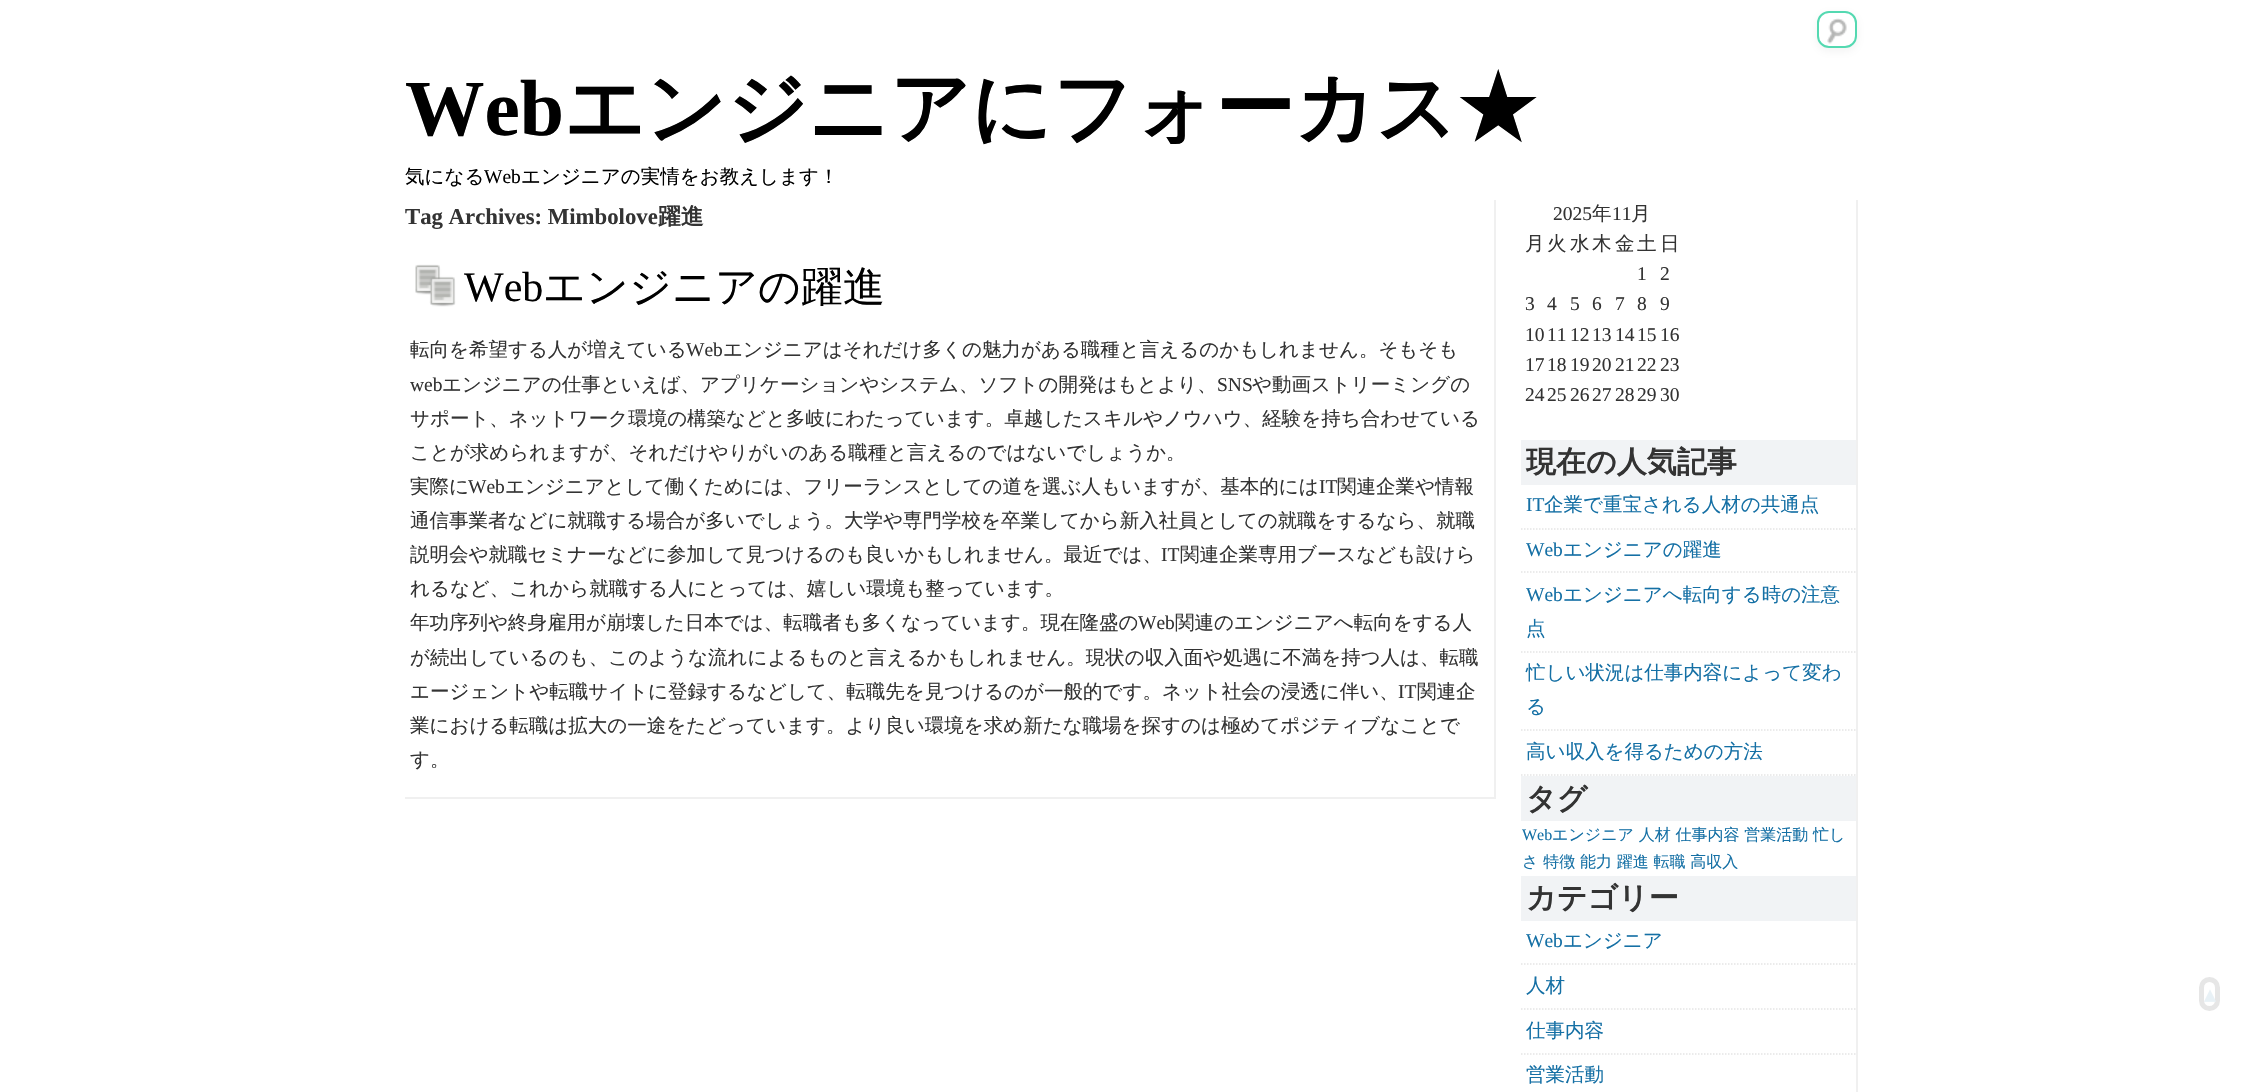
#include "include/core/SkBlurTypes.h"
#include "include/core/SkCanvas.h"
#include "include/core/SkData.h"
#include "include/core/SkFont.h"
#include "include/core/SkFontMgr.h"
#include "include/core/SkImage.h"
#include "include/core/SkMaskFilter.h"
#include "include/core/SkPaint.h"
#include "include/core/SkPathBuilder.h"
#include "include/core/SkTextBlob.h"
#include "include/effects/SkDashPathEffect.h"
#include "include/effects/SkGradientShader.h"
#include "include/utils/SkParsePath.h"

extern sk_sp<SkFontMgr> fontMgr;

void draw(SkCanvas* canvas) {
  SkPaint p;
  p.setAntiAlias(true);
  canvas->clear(SK_ColorWHITE);
  p.setColor(SkColorSetARGB(26, 131, 131, 131));
  p.setMaskFilter(SkMaskFilter::MakeBlur(kNormal_SkBlurStyle, 4));
  canvas->drawRoundRect(SkRect::MakeLTRB(1817, 14, 1857, 51), 12, 12, p);
  p.setMaskFilter(nullptr);
  p.setColor(SK_ColorWHITE);
  canvas->drawRoundRect(SkRect::MakeLTRB(1817, 11, 1857, 48), 12, 12, p);
  canvas->drawImageRect(SkImages::DeferredFromEncodedData(SkData::MakeFromFileName("images/1.png")), SkRect::MakeLTRB(1827, 18, 1847, 44), SkSamplingOptions());
  p.setStyle(SkPaint::kStroke_Style);
  p.setStrokeWidth(2);
  p.setColor(SkColorSetRGB(84, 217, 177));
  canvas->drawRoundRect(SkRect::MakeLTRB(1818, 12, 1856, 47), 11, 11, p);
  p.setStrokeWidth(5);
  p.setColor(SkColorSetRGB(230, 230, 230));
  canvas->drawRoundRect(SkRect::MakeLTRB(2201.5f, 979.5f, 2217.5f, 1008.5f), 8, 8, p);
  p.setStyle(SkPaint::kFill_Style);
  p.setColor(SkColorSetRGB(240, 240, 240));
  canvas->drawRect(SkRect::MakeLTRB(1494, 200, 1496, 798), p);
  canvas->drawRect(SkRect::MakeLTRB(405, 797, 1496, 799), p);
  canvas->drawImageRect(SkImages::DeferredFromEncodedData(SkData::MakeFromFileName("images/2.png")), SkRect::MakeLTRB(415, 264, 456, 307), SkSamplingOptions());
  canvas->drawRect(SkRect::MakeLTRB(1856, 200, 1858, 1092), p);
  p.setColor(SkColorSetRGB(241, 243, 245));
  canvas->drawRect(SkRect::MakeLTRB(1521, 440, 1856, 485), p);
  p.setStyle(SkPaint::kStroke_Style);
  p.setStrokeWidth(1.5f);
  p.setColor(SkColorSetRGB(229, 229, 229));
  p.setPathEffect(SkDashPathEffect::Make({{1.5f, 1.5f}}, 0));
  canvas->drawPath(SkPathBuilder().moveTo(1521, 529).lineTo(1855.5f, 529).detach(), p);
  p.setPathEffect(nullptr);
  p.setPathEffect(SkDashPathEffect::Make({{1.5f, 1.5f}}, 0));
  canvas->drawPath(SkPathBuilder().moveTo(1521, 572).lineTo(1855.5f, 572).detach(), p);
  p.setPathEffect(nullptr);
  p.setPathEffect(SkDashPathEffect::Make({{1.5f, 1.5f}}, 0));
  canvas->drawPath(SkPathBuilder().moveTo(1521, 652).lineTo(1855.5f, 652).detach(), p);
  p.setPathEffect(nullptr);
  p.setPathEffect(SkDashPathEffect::Make({{1.5f, 1.5f}}, 0));
  canvas->drawPath(SkPathBuilder().moveTo(1521, 730).lineTo(1855.5f, 730).detach(), p);
  p.setPathEffect(nullptr);
  p.setPathEffect(SkDashPathEffect::Make({{1.5f, 1.5f}}, 0));
  canvas->drawPath(SkPathBuilder().moveTo(1521, 775).lineTo(1855.5f, 775).detach(), p);
  p.setPathEffect(nullptr);
  p.setStyle(SkPaint::kFill_Style);
  p.setColor(SkColorSetRGB(241, 243, 245));
  canvas->drawRect(SkRect::MakeLTRB(1521, 776, 1856, 821), p);
  canvas->drawRect(SkRect::MakeLTRB(1521, 876, 1856, 921), p);
  p.setStyle(SkPaint::kStroke_Style);
  p.setColor(SkColorSetRGB(229, 229, 229));
  p.setPathEffect(SkDashPathEffect::Make({{1.5f, 1.5f}}, 0));
  canvas->drawPath(SkPathBuilder().moveTo(1521, 964).lineTo(1855.5f, 964).detach(), p);
  p.setPathEffect(nullptr);
  p.setPathEffect(SkDashPathEffect::Make({{1.5f, 1.5f}}, 0));
  canvas->drawPath(SkPathBuilder().moveTo(1521, 1009).lineTo(1855.5f, 1009).detach(), p);
  p.setPathEffect(nullptr);
  p.setPathEffect(SkDashPathEffect::Make({{1.5f, 1.5f}}, 0));
  canvas->drawPath(SkPathBuilder().moveTo(1521, 1054).lineTo(1855.5f, 1054).detach(), p);
  p.setPathEffect(nullptr);
  SkFont font1(fontMgr->matchFamilyStyle("Liberation Serif", SkFontStyle::Bold()), 79.5f);
  font1.setSubpixel(true);
  p.setStyle(SkPaint::kFill_Style);
  p.setColor(SK_ColorBLACK);
  canvas->drawString("Web", 405, 135, font1, p);
  SkFont font2(fontMgr->matchFamilyStyle("WenQuanYi Zen Hei", SkFontStyle::Bold()), 79.5f);
  font2.setSubpixel(true);
  canvas->drawString("エンジニアにフォーカス★", 564, 135, font2, p);
  SkFont font3(fontMgr->matchFamilyStyle("WenQuanYi Zen Hei", SkFontStyle(500, SkFontStyle::kNormal_Width, SkFontStyle::kUpright_Slant)), 19.5f);
  font3.setSubpixel(true);
  canvas->drawString("気になる", 405, 183, font3, p);
  SkFont font4(fontMgr->matchFamilyStyle("Liberation Serif", SkFontStyle::Normal()), 19.5f);
  font4.setSubpixel(true);
  canvas->drawString("Web", 484, 183, font4, p);
  canvas->drawString("エンジニアの実情をお教えします！", 521, 183, font3, p);
  SkFont font5(fontMgr->matchFamilyStyle("DejaVu Sans", SkFontStyle::Normal()), 24);
  font5.setSubpixel(true);
  p.setColor(SkColorSetRGB(232, 241, 246));
  canvas->drawString("▴", 2204, 1002, font5, p);
  SkFont font6(fontMgr->matchFamilyStyle("Liberation Serif", SkFontStyle::Bold()), 22.75f);
  font6.setSubpixel(true);
  p.setColor(SkColorSetRGB(51, 51, 51));
  canvas->drawString("Tag Archives: Mimbolove", 405, 224, font6, p);
  SkFont font7(fontMgr->matchFamilyStyle("WenQuanYi Zen Hei", SkFontStyle::Bold()), 22.75f);
  font7.setSubpixel(true);
  canvas->drawString("躍進", 658, 224, font7, p);
  SkFont font8(fontMgr->matchFamilyStyle("Liberation Serif", SkFontStyle::Normal()), 42);
  font8.setSubpixel(true);
  p.setColor(SK_ColorBLACK);
  canvas->drawString("Web", 464, 301, font8, p);
  SkFont font9(fontMgr->matchFamilyStyle("WenQuanYi Zen Hei", SkFontStyle(500, SkFontStyle::kNormal_Width, SkFontStyle::kUpright_Slant)), 42);
  font9.setSubpixel(true);
  canvas->drawString("エンジニアの躍進", 543, 301, font9, p);
  p.setColor(SkColorSetRGB(51, 51, 51));
  canvas->drawString("転向を希望する人が増えている", 410, 356, font3, p);
  canvas->drawString("Web", 686, 356, font4, p);
  canvas->drawString("エンジニアはそれだけ多くの魅力がある職種と言えるのかもしれません。そもそも", 723, 356, font3, p);
  canvas->drawString("web", 410, 391, font4, p);
  canvas->drawString("エンジニアの仕事といえば、アプリケーションやシステム、ソフトの開発はもとより、", 442, 391, font3, p);
  canvas->drawString("SNS", 1217, 391, font4, p);
  canvas->drawString("や動画ストリーミングの", 1252, 391, font3, p);
  canvas->drawString("サポート、ネットワーク環境の構築などと多岐にわたっています。卓越したスキルやノウハウ、経験を持ち合わせている", 410, 425, font3, p);
  canvas->drawString("ことが求められますが、それだけやりがいのある職種と言えるのではないでしょうか。", 410, 459, font3, p);
  canvas->drawString("実際に", 410, 493, font3, p);
  canvas->drawString("Web", 468, 493, font4, p);
  canvas->drawString("エンジニアとして働くためには、フリーランスとしての道を選ぶ人もいますが、基本的には", 505, 493, font3, p);
  canvas->drawString("IT", 1319, 493, font4, p);
  canvas->drawString("関連企業や情報", 1337, 493, font3, p);
  canvas->drawString("通信事業者などに就職する場合が多いでしょう。大学や専門学校を卒業してから新入社員としての就職をするなら、就職", 410, 527, font3, p);
  canvas->drawString("説明会や就職セミナーなどに参加して見つけるのも良いかもしれません。最近では、", 410, 561, font3, p);
  canvas->drawString("IT", 1161, 561, font4, p);
  canvas->drawString("関連企業専用ブースなども設けら", 1180, 561, font3, p);
  canvas->drawString("れるなど、これから就職する人にとっては、嬉しい環境も整っています。", 410, 595, font3, p);
  canvas->drawString("年功序列や終身雇用が崩壊した日本では、転職者も多くなっています。現在隆盛の", 410, 629, font3, p);
  canvas->drawString("Web", 1138, 629, font4, p);
  canvas->drawString("関連のエンジニアへ転向をする人", 1175, 629, font3, p);
  canvas->drawString("が続出しているのも、このような流れによるものと言えるかもしれません。現状の収入面や処遇に不満を持つ人は、転職", 410, 664, font3, p);
  canvas->drawString("エージェントや転職サイトに登録するなどして、転職先を見つけるのが一般的です。ネット社会の浸透に伴い、", 410, 698, font3, p);
  canvas->drawString("IT", 1398, 698, font4, p);
  canvas->drawString("関連企", 1417, 698, font3, p);
  canvas->drawString("業における転職は拡大の一途をたどっています。より良い環境を求め新たな職場を探すのは極めてポジティブなことで", 410, 732, font3, p);
  canvas->drawString("す。", 410, 766, font3, p);
  canvas->drawString("2025", 1553, 220, font4, p);
  canvas->drawString("年", 1592, 220, font3, p);
  canvas->drawString("11", 1612, 220, font4, p);
  canvas->drawString("月", 1631, 220, font3, p);
  canvas->drawString("月", 1525, 250, font3, p);
  canvas->drawString("火", 1547, 250, font3, p);
  canvas->drawString("水", 1570, 250, font3, p);
  canvas->drawString("木", 1592, 250, font3, p);
  canvas->drawString("金", 1615, 250, font3, p);
  canvas->drawString("土", 1637, 250, font3, p);
  canvas->drawString("日", 1660, 250, font3, p);
  canvas->drawString("1", 1637, 280, font4, p);
  canvas->drawString("2", 1660, 280, font4, p);
  canvas->drawString("3", 1525, 310, font4, p);
  canvas->drawString("4", 1547, 310, font4, p);
  canvas->drawString("5", 1570, 310, font4, p);
  canvas->drawString("6", 1592, 310, font4, p);
  canvas->drawString("7", 1615, 310, font4, p);
  canvas->drawString("8", 1637, 310, font4, p);
  canvas->drawString("9", 1660, 310, font4, p);
  canvas->drawString("10", 1525, 341, font4, p);
  canvas->drawString("11", 1547, 341, font4, p);
  canvas->drawString("12", 1570, 341, font4, p);
  canvas->drawString("13", 1592, 341, font4, p);
  canvas->drawString("14", 1615, 341, font4, p);
  canvas->drawString("15", 1637, 341, font4, p);
  canvas->drawString("16", 1660, 341, font4, p);
  canvas->drawString("17", 1525, 371, font4, p);
  canvas->drawString("18", 1547, 371, font4, p);
  canvas->drawString("19", 1570, 371, font4, p);
  canvas->drawString("20", 1592, 371, font4, p);
  canvas->drawString("21", 1615, 371, font4, p);
  canvas->drawString("22", 1637, 371, font4, p);
  canvas->drawString("23", 1660, 371, font4, p);
  canvas->drawString("24", 1525, 401, font4, p);
  canvas->drawString("25", 1547, 401, font4, p);
  canvas->drawString("26", 1570, 401, font4, p);
  canvas->drawString("27", 1592, 401, font4, p);
  canvas->drawString("28", 1615, 401, font4, p);
  canvas->drawString("29", 1637, 401, font4, p);
  canvas->drawString("30", 1660, 401, font4, p);
  SkFont font10(fontMgr->matchFamilyStyle("WenQuanYi Zen Hei", SkFontStyle::Bold()), 30);
  font10.setSubpixel(true);
  canvas->drawString("現在の人気記事", 1526, 472, font10, p);
  p.setColor(SkColorSetRGB(21, 112, 165));
  canvas->drawString("IT", 1526, 511, font4, p);
  canvas->drawString("企業で重宝される人材の共通点", 1544, 511, font3, p);
  canvas->drawString("Web", 1526, 556, font4, p);
  canvas->drawString("エンジニアの躍進", 1563, 556, font3, p);
  canvas->drawString("Web", 1526, 601, font4, p);
  canvas->drawString("エンジニアへ転向する時の注意", 1563, 601, font3, p);
  canvas->drawString("点", 1526, 635, font3, p);
  canvas->drawString("忙しい状況は仕事内容によって変わ", 1526, 679, font3, p);
  canvas->drawString("る", 1526, 713, font3, p);
  canvas->drawString("高い収入を得るための方法", 1526, 758, font3, p);
  p.setColor(SkColorSetRGB(51, 51, 51));
  canvas->drawString("タグ", 1526, 809, font10, p);
  SkFont font11(fontMgr->matchFamilyStyle("Liberation Serif", SkFontStyle::Normal()), 16);
  font11.setSubpixel(true);
  p.setColor(SkColorSetRGB(21, 112, 165));
  canvas->drawString("Web", 1522, 840, font11, p);
  SkFont font12(fontMgr->matchFamilyStyle("WenQuanYi Zen Hei", SkFontStyle(500, SkFontStyle::kNormal_Width, SkFontStyle::kUpright_Slant)), 16);
  font12.setSubpixel(true);
  canvas->drawString("エンジニア 人材 仕事内容 営業活動 忙し", 1552, 840, font12, p);
  canvas->drawString("さ 特徴 能力 躍進 転職 高収入", 1522, 867, font12, p);
  p.setColor(SkColorSetRGB(51, 51, 51));
  canvas->drawString("カテゴリー", 1526, 908, font10, p);
  p.setColor(SkColorSetRGB(21, 112, 165));
  canvas->drawString("Web", 1526, 947, font4, p);
  canvas->drawString("エンジニア", 1563, 947, font3, p);
  canvas->drawString("人材", 1526, 992, font3, p);
  canvas->drawString("仕事内容", 1526, 1037, font3, p);
  canvas->drawString("営業活動", 1526, 1081, font3, p);
}
